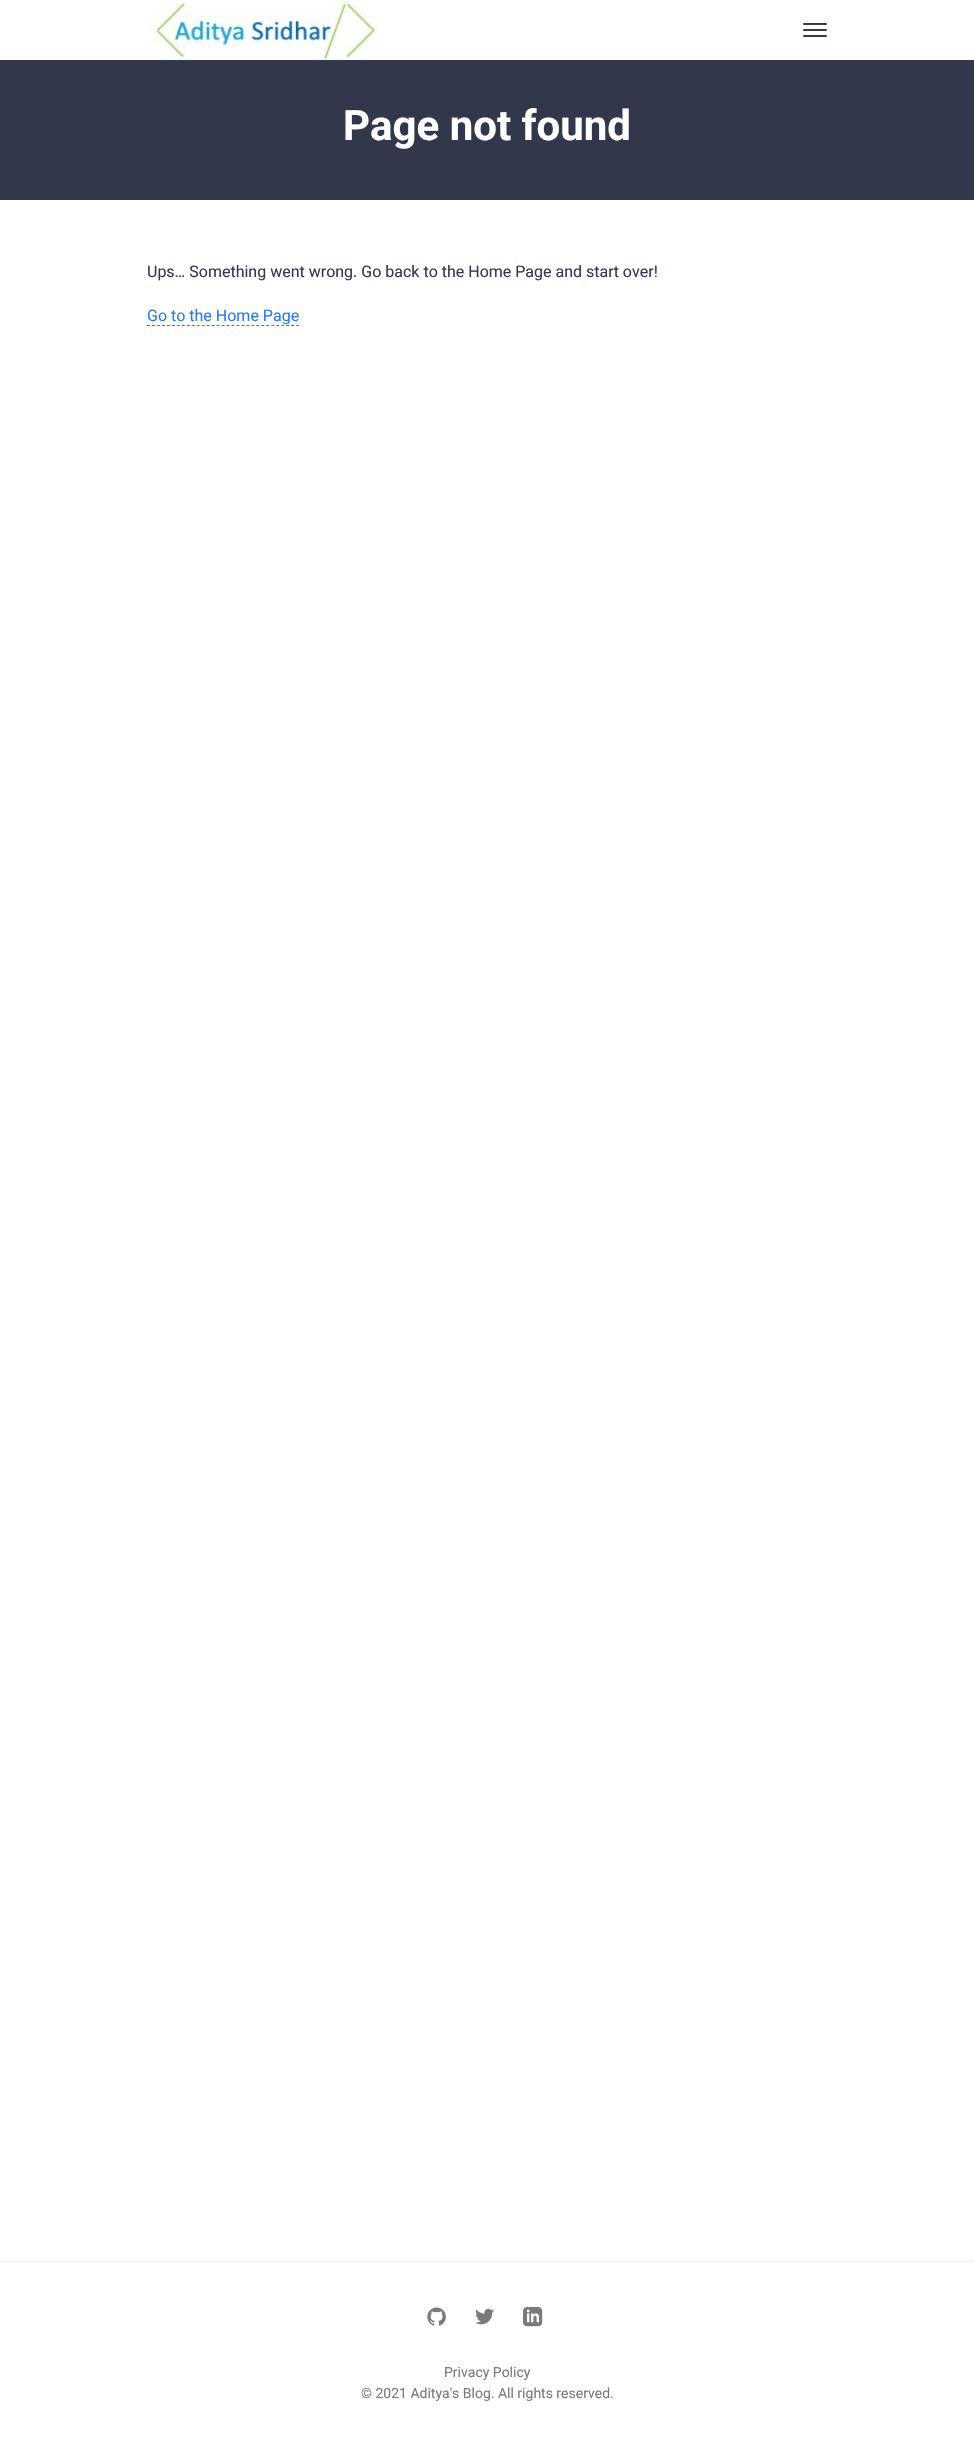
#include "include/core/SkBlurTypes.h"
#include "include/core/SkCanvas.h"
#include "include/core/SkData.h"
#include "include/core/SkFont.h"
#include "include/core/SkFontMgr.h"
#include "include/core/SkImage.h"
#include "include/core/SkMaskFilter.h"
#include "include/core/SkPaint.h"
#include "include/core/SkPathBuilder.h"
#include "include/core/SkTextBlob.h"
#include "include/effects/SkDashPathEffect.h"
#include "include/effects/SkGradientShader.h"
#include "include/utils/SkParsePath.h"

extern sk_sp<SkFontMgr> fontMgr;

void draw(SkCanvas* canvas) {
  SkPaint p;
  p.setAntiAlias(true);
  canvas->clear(SK_ColorWHITE);
  canvas->drawImageRect(SkImages::DeferredFromEncodedData(SkData::MakeFromFileName("images/1.png")), SkRect::MakeLTRB(147, 0, 379, 60), SkSamplingOptions());
  p.setColor(SkColorSetRGB(52, 56, 81));
  canvas->drawRoundRect(SkRect::MakeLTRB(803, 23, 827, 25), 1, 1, p);
  canvas->drawRoundRect(SkRect::MakeLTRB(803, 29, 827, 31), 1, 1, p);
  canvas->drawRoundRect(SkRect::MakeLTRB(803, 35, 827, 37), 1, 1, p);
  p.setColor(SkColorSetRGB(51, 55, 76));
  canvas->drawRect(SkRect::MakeLTRB(0, 60, 974, 200), p);
  p.setStyle(SkPaint::kStroke_Style);
  p.setStrokeWidth(1);
  p.setColor(SkColorSetRGB(39, 124, 234));
  p.setPathEffect(SkDashPathEffect::Make({{3, 1.97f}}, 0));
  canvas->drawPath(SkPathBuilder().moveTo(147, 325.5f).lineTo(299, 325.5f).detach(), p);
  p.setPathEffect(nullptr);
  p.setStyle(SkPaint::kFill_Style);
  p.setColor(SkColorSetRGB(240, 240, 240));
  canvas->drawRect(SkRect::MakeLTRB(0, 2261, 974, 2262), p);
  canvas->drawImageRect(SkImages::DeferredFromEncodedData(SkData::MakeFromFileName("images/2.png")), SkRect::MakeLTRB(427, 2307, 446, 2326), SkSamplingOptions());
  canvas->drawImageRect(SkImages::DeferredFromEncodedData(SkData::MakeFromFileName("images/3.png")), SkRect::MakeLTRB(475, 2308, 494, 2325), SkSamplingOptions());
  canvas->drawImageRect(SkImages::DeferredFromEncodedData(SkData::MakeFromFileName("images/4.png")), SkRect::MakeLTRB(523, 2307, 543, 2327), SkSamplingOptions());
  SkFont font1(fontMgr->matchFamilyStyle("Roboto", SkFontStyle::Bold()), 42);
  font1.setSubpixel(true);
  p.setColor(SK_ColorWHITE);
  canvas->drawString("Page not found", 343, 140, font1, p);
  SkFont font2(fontMgr->matchFamilyStyle("Roboto", SkFontStyle::Normal()), 16);
  font2.setSubpixel(true);
  p.setColor(SkColorSetRGB(52, 56, 81));
  canvas->drawString("Ups… Something went wrong. Go back to the Home Page and start over!", 147, 277, font2, p);
  p.setColor(SkColorSetRGB(39, 124, 234));
  canvas->drawString("Go to the Home Page", 147, 321, font2, p);
  SkFont font3(fontMgr->matchFamilyStyle("Roboto", SkFontStyle::Normal()), 14);
  font3.setSubpixel(true);
  p.setColor(SkColorSetRGB(122, 122, 122));
  canvas->drawString("Privacy Policy", 444, 2377, font3, p);
  canvas->drawString("© 2021 Aditya's Blog. All rights reserved.", 361, 2398, font3, p);
}
